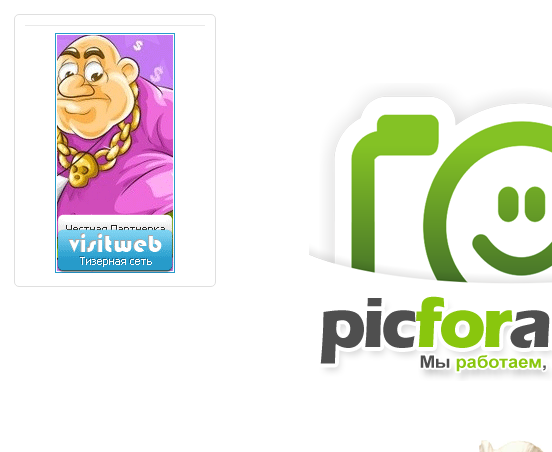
#include "include/core/SkBlurTypes.h"
#include "include/core/SkCanvas.h"
#include "include/core/SkData.h"
#include "include/core/SkFont.h"
#include "include/core/SkFontMgr.h"
#include "include/core/SkImage.h"
#include "include/core/SkMaskFilter.h"
#include "include/core/SkPaint.h"
#include "include/core/SkPathBuilder.h"
#include "include/core/SkTextBlob.h"
#include "include/effects/SkDashPathEffect.h"
#include "include/effects/SkGradientShader.h"
#include "include/utils/SkParsePath.h"

extern sk_sp<SkFontMgr> fontMgr;

void draw(SkCanvas* canvas) {
  SkPaint p;
  p.setAntiAlias(true);
  canvas->clear(SK_ColorWHITE);
  p.setStyle(SkPaint::kStroke_Style);
  p.setStrokeWidth(1);
  p.setColor(SkColorSetRGB(223, 223, 223));
  canvas->drawRoundRect(SkRect::MakeLTRB(14.5f, 14.5f, 215.5f, 286.5f), 4.5f, 4.5f, p);
  p.setStyle(SkPaint::kFill_Style);
  p.setColor(SkColorSetRGB(233, 233, 233));
  canvas->drawRect(SkRect::MakeLTRB(25, 25, 205, 26), p);
  canvas->drawImageRect(SkImages::DeferredFromEncodedData(SkData::MakeFromFileName("images/1.png")), SkRect::MakeLTRB(55, 33, 175, 273), SkSamplingOptions());
  canvas->drawImageRect(SkImages::DeferredFromEncodedData(SkData::MakeFromFileName("images/2.png")), SkRect::MakeLTRB(309, 83, 552, 381), SkSamplingOptions());
  canvas->drawImageRect(SkImages::DeferredFromEncodedData(SkData::MakeFromFileName("images/3.png")), SkRect::MakeLTRB(479, 440, 544, 452), SkSamplingOptions());
}
